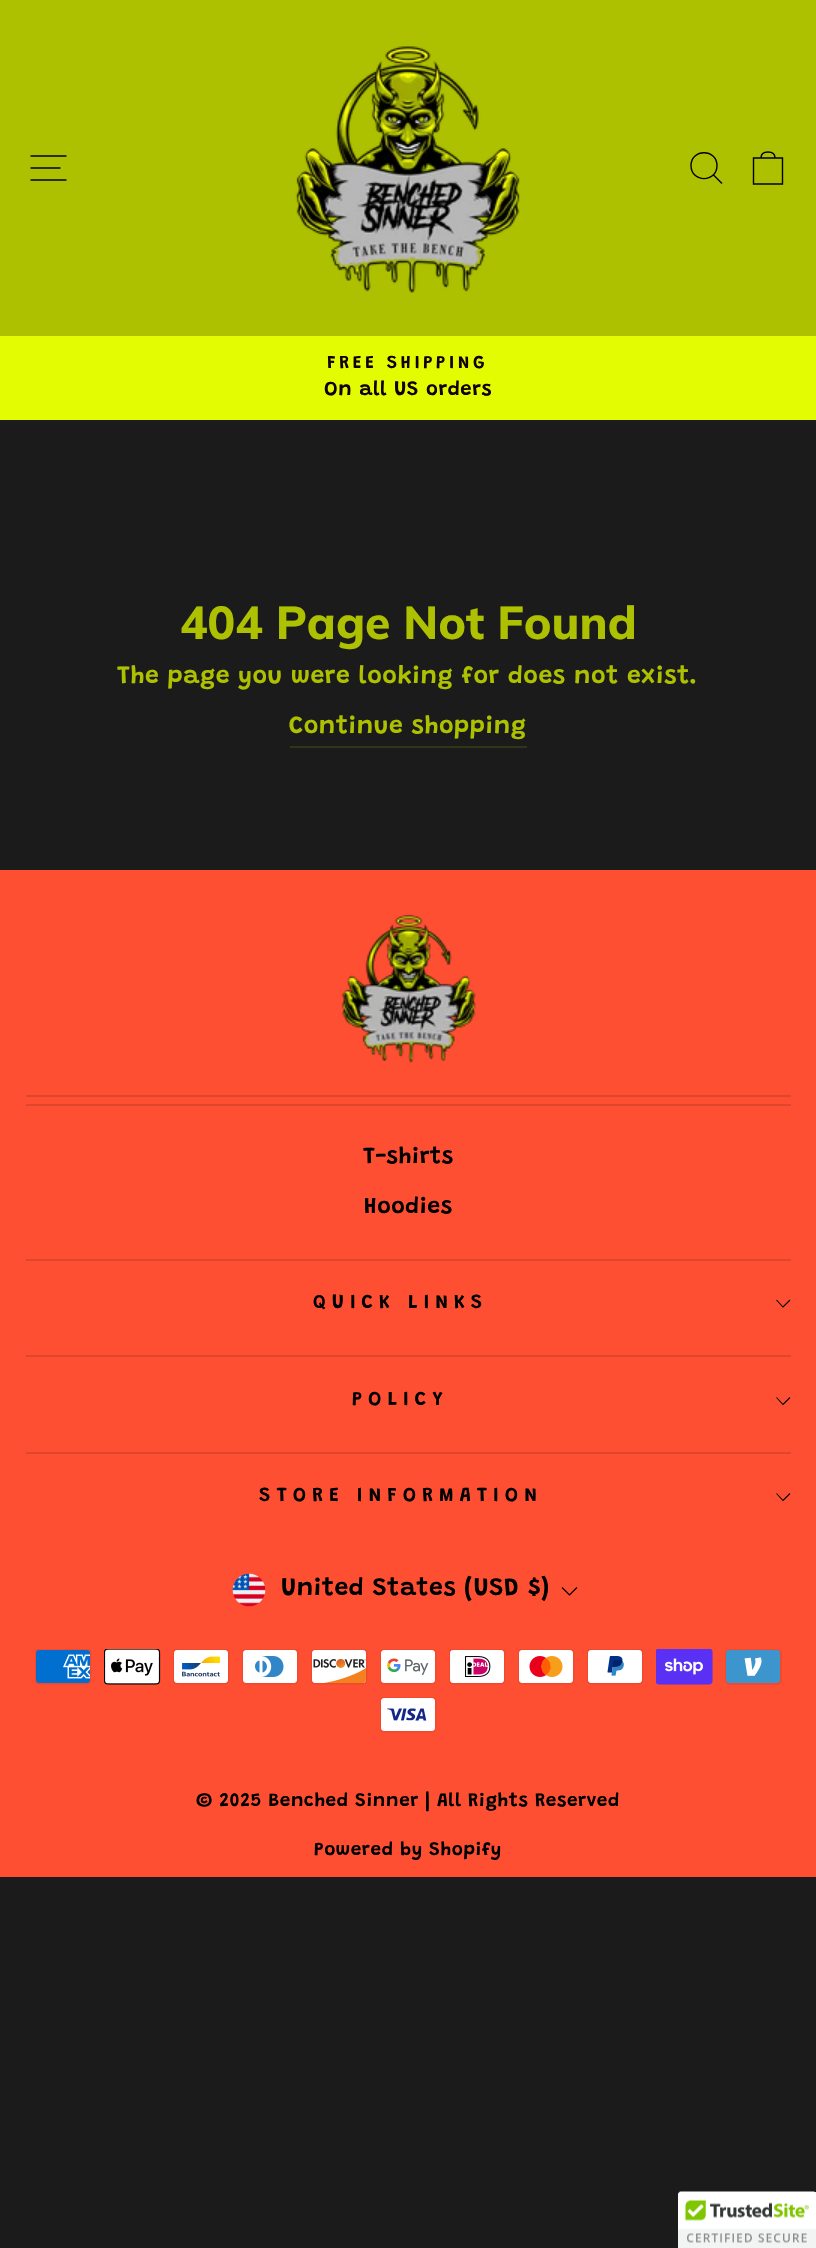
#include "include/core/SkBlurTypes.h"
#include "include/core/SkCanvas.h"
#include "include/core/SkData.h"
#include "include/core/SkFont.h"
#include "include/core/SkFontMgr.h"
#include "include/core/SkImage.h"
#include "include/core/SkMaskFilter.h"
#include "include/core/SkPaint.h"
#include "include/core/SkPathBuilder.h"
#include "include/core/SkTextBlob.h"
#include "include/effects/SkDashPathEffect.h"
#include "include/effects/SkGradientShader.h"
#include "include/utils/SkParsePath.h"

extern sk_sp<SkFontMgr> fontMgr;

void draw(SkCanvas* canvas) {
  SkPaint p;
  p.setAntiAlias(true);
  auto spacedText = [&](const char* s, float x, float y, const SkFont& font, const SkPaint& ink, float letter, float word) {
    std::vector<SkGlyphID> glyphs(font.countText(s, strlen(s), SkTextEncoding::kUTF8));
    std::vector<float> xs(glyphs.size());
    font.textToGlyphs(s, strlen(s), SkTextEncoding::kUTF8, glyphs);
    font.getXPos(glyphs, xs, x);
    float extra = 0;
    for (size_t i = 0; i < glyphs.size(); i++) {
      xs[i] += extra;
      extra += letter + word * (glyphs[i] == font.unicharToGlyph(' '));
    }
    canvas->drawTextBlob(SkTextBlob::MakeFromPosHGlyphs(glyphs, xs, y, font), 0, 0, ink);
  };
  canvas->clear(SkColorSetRGB(27, 27, 27));
  p.setColor(SkColorSetRGB(174, 193, 0));
  canvas->drawRect(SkRect::MakeLTRB(0, 0, 816, 336), p);
  p.setStyle(SkPaint::kStroke_Style);
  p.setStrokeWidth(1.4f);
  p.setColor(SK_ColorBLACK);
  canvas->drawPath(SkPathBuilder().moveTo(30.5f, 156).lineTo(66.5f, 156).moveTo(30.5f, 168).lineTo(60.5f, 168).moveTo(30.5f, 180).lineTo(66.5f, 180).detach(), p);
  canvas->drawImageRect(SkImages::DeferredFromEncodedData(SkData::MakeFromFileName("images/1.png")), SkRect::MakeLTRB(295, 46, 520, 293), SkSamplingOptions());
  canvas->drawPath(SkPathBuilder().moveTo(717, 165.5f).cubicTo(717, 183, 691, 183, 691, 165.5f).cubicTo(691, 148.5f, 717, 148.5f, 717, 165.5f).close().moveTo(722, 183.5f).lineTo(713.5f, 175).detach(), p);
  canvas->drawPath(SkPathBuilder().moveTo(753.5f, 158).lineTo(782.5f, 158).lineTo(782.5f, 184).lineTo(753.5f, 184).close().moveTo(761, 158).cubicTo(761, 153, 764, 152, 768, 152).cubicTo(772, 152, 775, 153, 775, 158).detach(), p);
  p.setStyle(SkPaint::kFill_Style);
  p.setColor(SkColorSetRGB(227, 252, 2));
  canvas->drawRect(SkRect::MakeLTRB(0, 336, 816, 420), p);
  p.setColor(SkColorSetRGB(49, 52, 23));
  canvas->drawRect(SkRect::MakeLTRB(290, 746, 527, 748), p);
  p.setColor(SkColorSetRGB(255, 79, 51));
  canvas->drawRect(SkRect::MakeLTRB(0, 870, 816, 1877), p);
  canvas->drawImageRect(SkImages::DeferredFromEncodedData(SkData::MakeFromFileName("images/2.png")), SkRect::MakeLTRB(341, 914, 476, 1063), SkSamplingOptions());
  p.setColor(SkColorSetRGB(224, 70, 45));
  canvas->drawRect(SkRect::MakeLTRB(26, 1095, 791, 1097), p);
  canvas->drawRect(SkRect::MakeLTRB(26, 1104, 791, 1106), p);
  canvas->drawRect(SkRect::MakeLTRB(26, 1259, 791, 1261), p);
  p.setStyle(SkPaint::kStroke_Style);
  p.setStrokeWidth(1.1f);
  p.setColor(SK_ColorBLACK);
  canvas->drawPath(SkPathBuilder().moveTo(776.5f, 1300).lineTo(783, 1307).lineTo(790, 1300).detach(), p);
  p.setStyle(SkPaint::kFill_Style);
  p.setColor(SkColorSetRGB(224, 70, 45));
  canvas->drawRect(SkRect::MakeLTRB(26, 1355, 791, 1357), p);
  p.setStyle(SkPaint::kStroke_Style);
  p.setColor(SK_ColorBLACK);
  canvas->drawPath(SkPathBuilder().moveTo(776.5f, 1397.5f).lineTo(783, 1404.5f).lineTo(790, 1397.5f).detach(), p);
  p.setStyle(SkPaint::kFill_Style);
  p.setColor(SkColorSetRGB(224, 70, 45));
  canvas->drawRect(SkRect::MakeLTRB(26, 1452, 791, 1454), p);
  p.setStyle(SkPaint::kStroke_Style);
  p.setColor(SK_ColorBLACK);
  canvas->drawPath(SkPathBuilder().moveTo(776.5f, 1493.5f).lineTo(783, 1500.5f).lineTo(790, 1493.5f).detach(), p);
  canvas->drawImageRect(SkImages::DeferredFromEncodedData(SkData::MakeFromFileName("images/3.png")), SkRect::MakeLTRB(232, 1573, 266, 1607), SkSamplingOptions());
  p.setStrokeWidth(1.2f);
  canvas->drawPath(SkPathBuilder().moveTo(562, 1587.5f).lineTo(569.5f, 1595).lineTo(577, 1587.5f).detach(), p);
  canvas->drawImageRect(SkImages::DeferredFromEncodedData(SkData::MakeFromFileName("images/4.png")), SkRect::MakeLTRB(35, 1649, 92, 1685), SkSamplingOptions());
  canvas->drawImageRect(SkImages::DeferredFromEncodedData(SkData::MakeFromFileName("images/5.png")), SkRect::MakeLTRB(104, 1649, 161, 1685), SkSamplingOptions());
  canvas->drawImageRect(SkImages::DeferredFromEncodedData(SkData::MakeFromFileName("images/6.png")), SkRect::MakeLTRB(173, 1649, 230, 1685), SkSamplingOptions());
  canvas->drawImageRect(SkImages::DeferredFromEncodedData(SkData::MakeFromFileName("images/7.png")), SkRect::MakeLTRB(242, 1649, 299, 1685), SkSamplingOptions());
  canvas->drawImageRect(SkImages::DeferredFromEncodedData(SkData::MakeFromFileName("images/8.png")), SkRect::MakeLTRB(311, 1649, 368, 1685), SkSamplingOptions());
  canvas->drawImageRect(SkImages::DeferredFromEncodedData(SkData::MakeFromFileName("images/9.png")), SkRect::MakeLTRB(380, 1649, 437, 1685), SkSamplingOptions());
  canvas->drawImageRect(SkImages::DeferredFromEncodedData(SkData::MakeFromFileName("images/10.png")), SkRect::MakeLTRB(449, 1649, 506, 1685), SkSamplingOptions());
  canvas->drawImageRect(SkImages::DeferredFromEncodedData(SkData::MakeFromFileName("images/11.png")), SkRect::MakeLTRB(518, 1649, 575, 1685), SkSamplingOptions());
  canvas->drawImageRect(SkImages::DeferredFromEncodedData(SkData::MakeFromFileName("images/12.png")), SkRect::MakeLTRB(587, 1649, 644, 1685), SkSamplingOptions());
  canvas->drawImageRect(SkImages::DeferredFromEncodedData(SkData::MakeFromFileName("images/13.png")), SkRect::MakeLTRB(656, 1649, 713, 1685), SkSamplingOptions());
  canvas->drawImageRect(SkImages::DeferredFromEncodedData(SkData::MakeFromFileName("images/14.png")), SkRect::MakeLTRB(725, 1649, 782, 1685), SkSamplingOptions());
  canvas->drawImageRect(SkImages::DeferredFromEncodedData(SkData::MakeFromFileName("images/15.png")), SkRect::MakeLTRB(380, 1697, 437, 1733), SkSamplingOptions());
  p.setStyle(SkPaint::kFill_Style);
  p.setColor(SK_ColorWHITE);
  canvas->drawPath(SkPathBuilder().moveTo(681, 2192).lineTo(816, 2192).lineTo(816, 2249).lineTo(678, 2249).lineTo(678, 2195).cubicTo(678, 2193.5f, 679.5f, 2192, 681, 2192).close().detach(), p);
  canvas->drawImageRect(SkImages::DeferredFromEncodedData(SkData::MakeFromFileName("images/16.png")), SkRect::MakeLTRB(678, 2191, 816, 2248), SkSamplingOptions());
  SkFont font1(fontMgr->matchFamilyStyle("Grandstander", SkFontStyle(600, SkFontStyle::kNormal_Width, SkFontStyle::kUpright_Slant)), 18.25f);
  font1.setSubpixel(true);
  p.setColor(SkColorSetRGB(19, 0, 0));
  spacedText("FREE SHIPPING", 327, 368, font1, p, 3.6f, 0);
  SkFont font2(fontMgr->matchFamilyStyle("Grandstander", SkFontStyle(600, SkFontStyle::kNormal_Width, SkFontStyle::kUpright_Slant)), 20.25f);
  font2.setSubpixel(true);
  spacedText("On all US orders", 324, 395, font2, p, 0.6f, 0);
  SkFont font3(fontMgr->matchFamilyStyle("Muli", SkFontStyle(800, SkFontStyle::kNormal_Width, SkFontStyle::kUpright_Slant)), 46);
  font3.setSubpixel(true);
  p.setColor(SkColorSetRGB(174, 193, 0));
  canvas->drawString("404 Page Not Found", 180, 639, font3, p);
  SkFont font4(fontMgr->matchFamilyStyle("Grandstander", SkFontStyle(600, SkFontStyle::kNormal_Width, SkFontStyle::kUpright_Slant)), 24.8f);
  font4.setSubpixel(true);
  spacedText("The page you were looking for does not exist.", 117, 683, font4, p, 0.6f, 0);
  spacedText("Continue shopping", 289, 733, font4, p, 0.6f, 0);
  SkFont font5(fontMgr->matchFamilyStyle("Grandstander", SkFontStyle(600, SkFontStyle::kNormal_Width, SkFontStyle::kUpright_Slant)), 23);
  font5.setSubpixel(true);
  p.setColor(SK_ColorBLACK);
  spacedText("T-shirts", 363, 1163, font5, p, 0.6f, 0);
  spacedText("Hoodies", 364, 1213, font5, p, 0.6f, 0);
  SkFont font6(fontMgr->matchFamilyStyle("Grandstander", SkFontStyle(600, SkFontStyle::kNormal_Width, SkFontStyle::kUpright_Slant)), 19.9f);
  font6.setSubpixel(true);
  spacedText("QUICK LINKS", 313, 1308, font6, p, 6, 0);
  spacedText("POLICY", 352, 1405, font6, p, 6, 0);
  spacedText("STORE INFORMATION", 259, 1501, font6, p, 6, 0);
  spacedText("United States (USD $)", 281, 1595, font4, p, 0.6f, 0);
  SkFont font7(fontMgr->matchFamilyStyle("Grandstander", SkFontStyle(600, SkFontStyle::kNormal_Width, SkFontStyle::kUpright_Slant)), 18.9f);
  font7.setSubpixel(true);
  spacedText("© 2025 Benched Sinner | All Rights Reserved", 196, 1806, font7, p, 0.6f, 0);
  spacedText("Powered by Shopify", 314, 1855, font7, p, 0.6f, 0);
}
